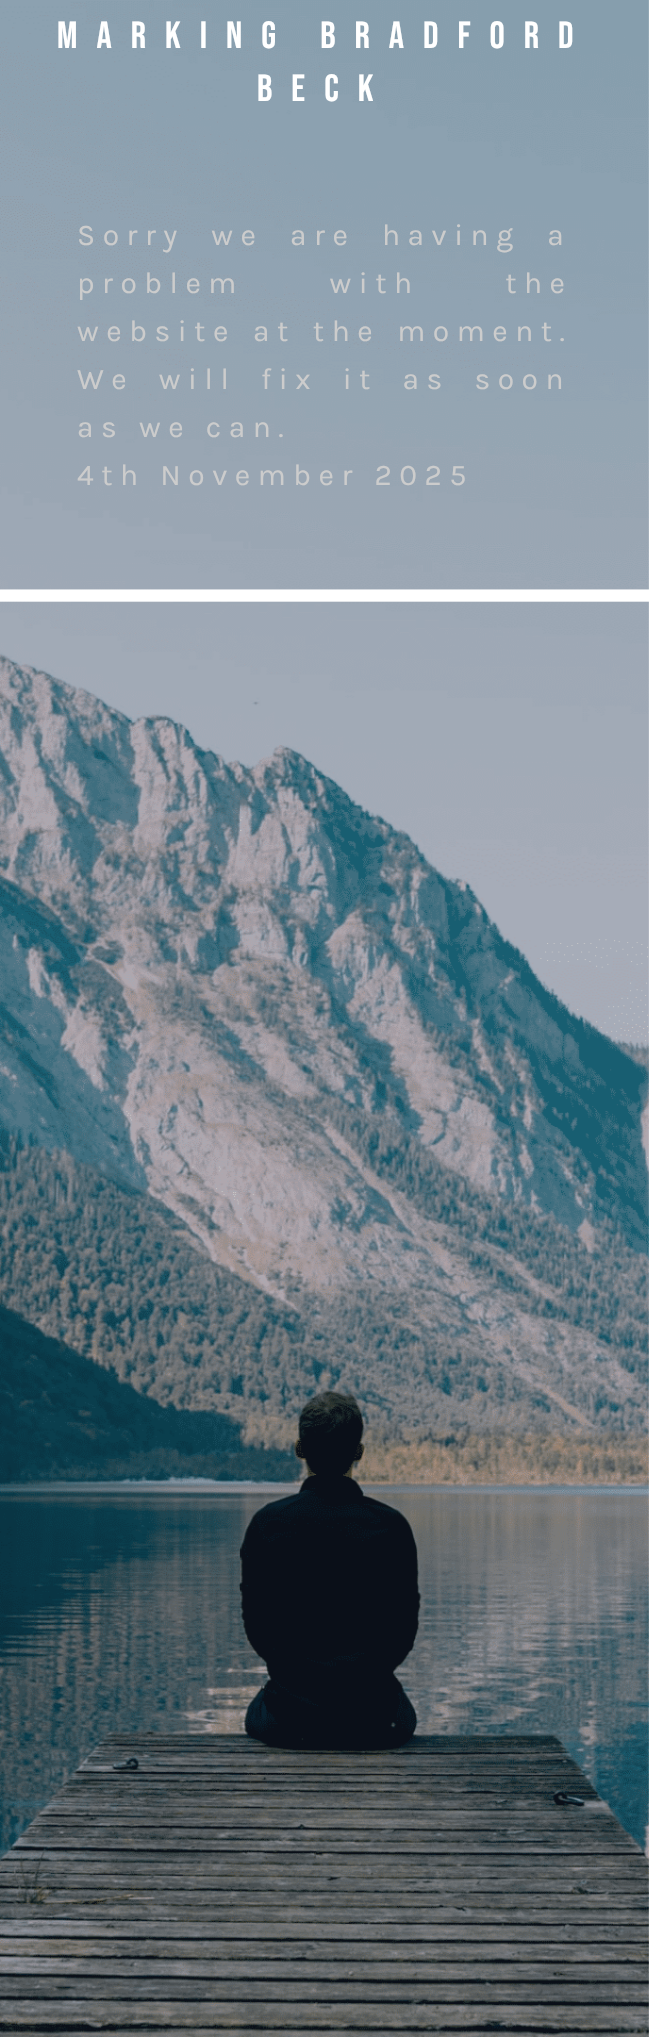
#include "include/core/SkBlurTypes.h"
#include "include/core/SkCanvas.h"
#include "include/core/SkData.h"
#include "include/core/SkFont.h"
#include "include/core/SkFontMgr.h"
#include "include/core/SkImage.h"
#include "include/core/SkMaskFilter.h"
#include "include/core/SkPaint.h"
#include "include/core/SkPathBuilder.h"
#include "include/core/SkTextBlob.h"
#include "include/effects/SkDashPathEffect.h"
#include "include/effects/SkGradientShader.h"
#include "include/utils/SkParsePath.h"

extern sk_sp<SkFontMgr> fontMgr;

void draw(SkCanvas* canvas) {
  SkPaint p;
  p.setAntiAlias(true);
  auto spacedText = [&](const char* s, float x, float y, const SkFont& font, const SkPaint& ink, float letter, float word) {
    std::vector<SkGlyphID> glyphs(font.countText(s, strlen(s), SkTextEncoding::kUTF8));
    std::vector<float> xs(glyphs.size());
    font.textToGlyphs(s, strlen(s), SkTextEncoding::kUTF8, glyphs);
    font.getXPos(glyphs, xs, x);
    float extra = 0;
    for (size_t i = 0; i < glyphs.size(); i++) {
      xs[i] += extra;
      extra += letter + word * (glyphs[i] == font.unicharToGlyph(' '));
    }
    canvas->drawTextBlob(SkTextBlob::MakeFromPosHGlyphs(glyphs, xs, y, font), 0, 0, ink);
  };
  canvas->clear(SK_ColorWHITE);
  canvas->drawImageRect(SkImages::DeferredFromEncodedData(SkData::MakeFromFileName("images/1.png")), SkRect::MakeLTRB(0, 0, 649, 2037), SkSamplingOptions());
  SkFont font1(fontMgr->matchFamilyStyle("Bebas Neue", SkFontStyle::Normal()), 38);
  font1.setSubpixel(true);
  p.setColor(SK_ColorWHITE);
  spacedText("Marking Bradford", 57, 48, font1, p, 19, 0);
  spacedText("Beck", 257, 101, font1, p, 19, 0);
  SkFont font2(fontMgr->matchFamilyStyle("Karla", SkFontStyle::Normal()), 30);
  font2.setSubpixel(true);
  p.setColor(SkColorSetRGB(204, 204, 204));
  spacedText("Sorry we are having a", 77, 245, font2, p, 7.5f, 12);
  spacedText("problem with the", 77, 293, font2, p, 7.5f, 71);
  spacedText("website at the moment.", 77, 341, font2, p, 7.5f, 2.5f);
  spacedText("We will fix it as soon", 77, 389, font2, p, 7.5f, 10);
  spacedText("as we can.", 77, 437, font2, p, 7.5f, 0);
  spacedText("4th November 2025", 77, 485, font2, p, 7.5f, 0);
}
